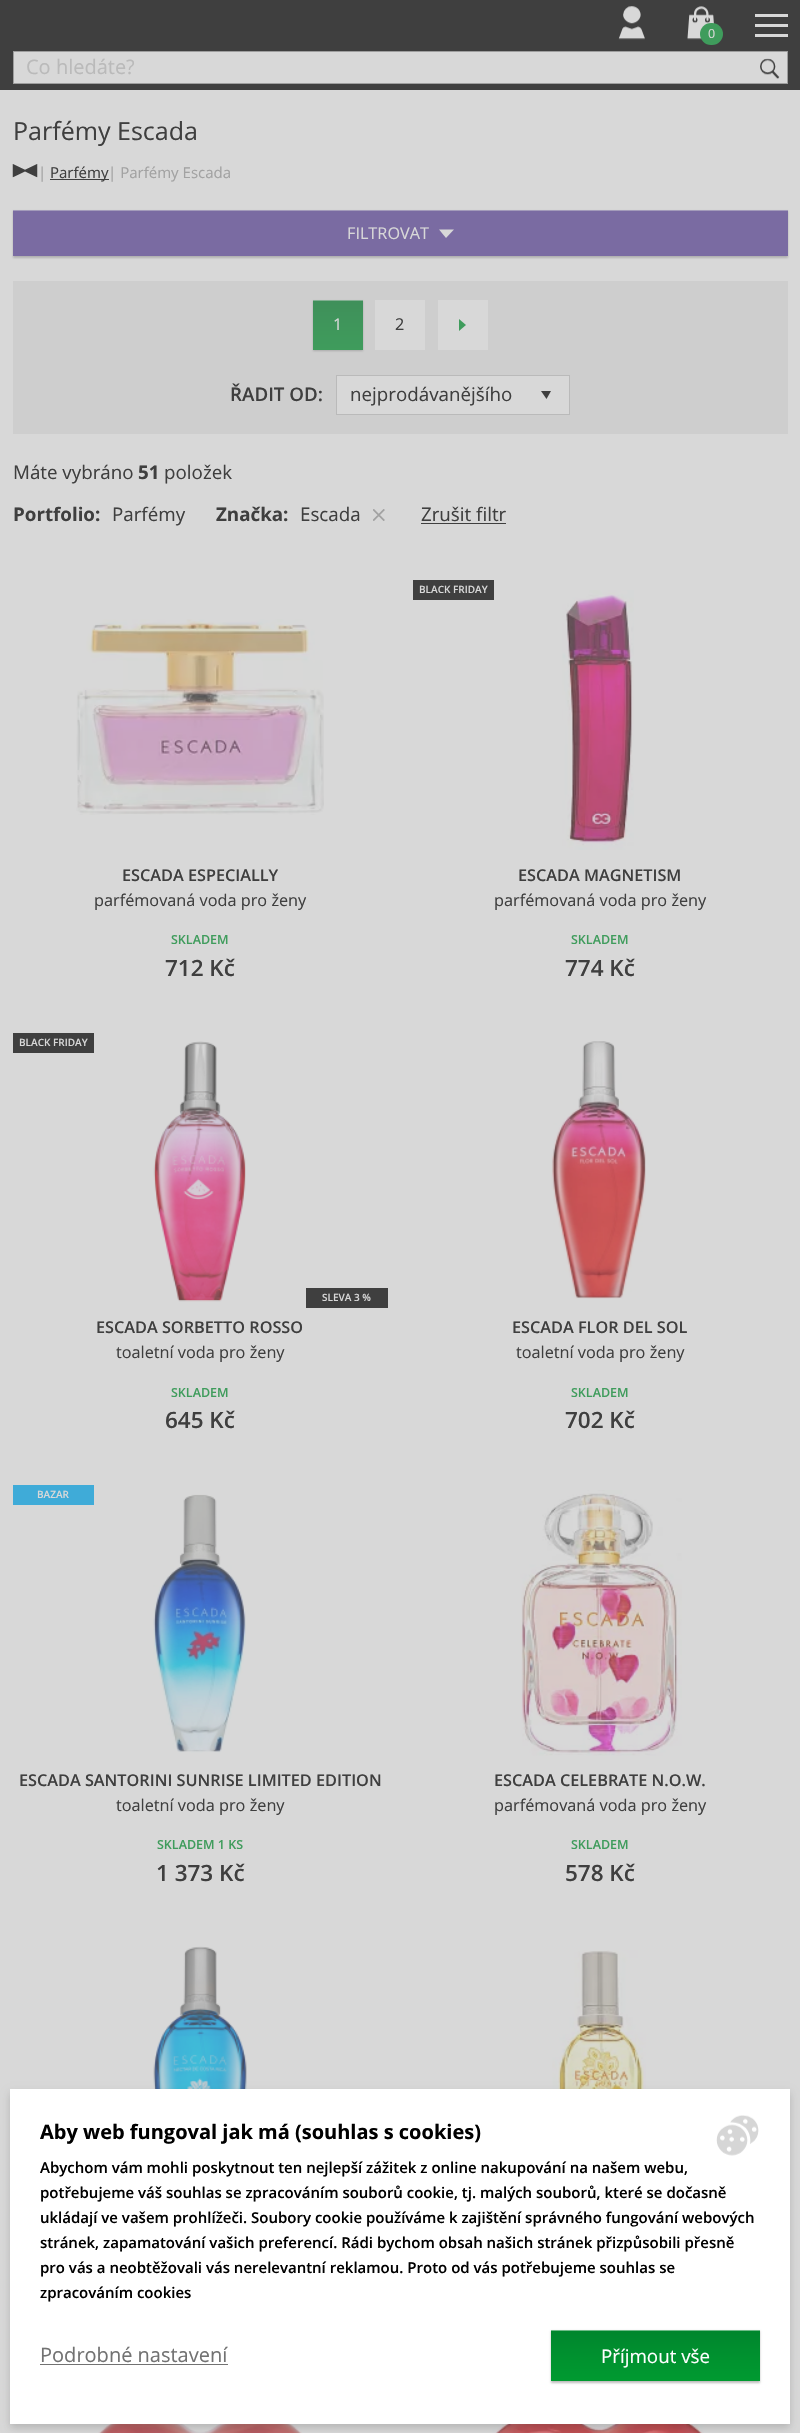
#include "include/core/SkBlurTypes.h"
#include "include/core/SkCanvas.h"
#include "include/core/SkData.h"
#include "include/core/SkFont.h"
#include "include/core/SkFontMgr.h"
#include "include/core/SkImage.h"
#include "include/core/SkMaskFilter.h"
#include "include/core/SkPaint.h"
#include "include/core/SkPathBuilder.h"
#include "include/core/SkTextBlob.h"
#include "include/effects/SkDashPathEffect.h"
#include "include/effects/SkGradientShader.h"
#include "include/utils/SkParsePath.h"

extern sk_sp<SkFontMgr> fontMgr;

void draw(SkCanvas* canvas) {
  SkPaint p;
  p.setAntiAlias(true);
  canvas->clear(SkColorSetRGB(216, 216, 216));
  p.setColor(SkColorSetRGB(63, 63, 63));
  canvas->drawRect(SkRect::MakeLTRB(0, 0, 800, 90), p);
  canvas->drawImageRect(SkImages::DeferredFromEncodedData(SkData::MakeFromFileName("images/1.png")), SkRect::MakeLTRB(618, 6, 645, 40), SkSamplingOptions());
  canvas->drawImageRect(SkImages::DeferredFromEncodedData(SkData::MakeFromFileName("images/2.png")), SkRect::MakeLTRB(687, 6, 714, 40), SkSamplingOptions());
  p.setColor(SkColorSetRGB(63, 156, 92));
  canvas->drawRoundRect(SkRect::MakeLTRB(700, 23, 723, 45), 11, 11, p);
  p.setColor(SkColorSetRGB(216, 216, 216));
  canvas->drawRect(SkRect::MakeLTRB(755, 24, 788, 27), p);
  canvas->drawRect(SkRect::MakeLTRB(755, 14, 788, 17), p);
  canvas->drawRect(SkRect::MakeLTRB(755, 34, 788, 37), p);
  canvas->drawRect(SkRect::MakeLTRB(13.5f, 51.5f, 787.5f, 83.5f), p);
  p.setStyle(SkPaint::kStroke_Style);
  p.setStrokeWidth(1);
  p.setColor(SkColorSetRGB(158, 158, 158));
  canvas->drawRect(SkRect::MakeLTRB(13.5f, 51.5f, 787.5f, 83.5f), p);
  canvas->drawImageRect(SkImages::DeferredFromEncodedData(SkData::MakeFromFileName("images/3.png")), SkRect::MakeLTRB(760, 58, 780, 79), SkSamplingOptions());
  canvas->drawImageRect(SkImages::DeferredFromEncodedData(SkData::MakeFromFileName("images/4.png")), SkRect::MakeLTRB(12, 164, 38, 178), SkSamplingOptions());
  p.setStyle(SkPaint::kFill_Style);
  p.setColor(SkColorSetRGB(63, 63, 63));
  canvas->drawRect(SkRect::MakeLTRB(50, 179, 109, 180), p);
  p.setColor(SkColorSetARGB(66, 63, 63, 63));
  p.setMaskFilter(SkMaskFilter::MakeBlur(kNormal_SkBlurStyle, 1));
  canvas->drawRect(SkRect::MakeLTRB(13, 211, 788, 258), p);
  p.setMaskFilter(nullptr);
  p.setColor(SkColorSetRGB(122, 107, 162));
  canvas->drawRect(SkRect::MakeLTRB(13, 211, 788, 256), p);
  p.setColor(SkColorSetRGB(163, 155, 186));
  canvas->drawRect(SkRect::MakeLTRB(13, 210, 788, 211), p);
  p.setColor(SkColorSetRGB(216, 216, 216));
  canvas->drawPath(SkPathBuilder().moveTo(439, 229.5f).lineTo(454, 229.5f).lineTo(446, 238).close().detach(), p);
  p.setColor(SkColorSetRGB(206, 206, 206));
  canvas->drawRect(SkRect::MakeLTRB(13, 281, 788, 434), p);
  p.setColor(SkColorSetARGB(66, 63, 63, 63));
  p.setMaskFilter(SkMaskFilter::MakeBlur(kNormal_SkBlurStyle, 1));
  canvas->drawRect(SkRect::MakeLTRB(313, 301, 363, 351), p);
  p.setMaskFilter(nullptr);
  {
    const SkColor colors[] = {SkColorSetRGB(63, 143, 90), SkColorSetRGB(63, 150, 91), SkColorSetRGB(63, 156, 92)};
    const float stops[] = {0, 0.25f, 0.5f};
    const SkPoint ends[] = {{338, 300}, {338, 400}};
    p.setShader(SkGradientShader::MakeLinear(ends, colors, stops, 3, SkTileMode::kClamp));
    p.setAlpha(255);
  }
  canvas->drawRect(SkRect::MakeLTRB(313, 301, 363, 350), p);
  p.setShader(nullptr);
  p.setColor(SkColorSetRGB(130, 175, 145));
  canvas->drawRect(SkRect::MakeLTRB(313, 300, 363, 301), p);
  p.setColor(SkColorSetRGB(216, 216, 216));
  canvas->drawRect(SkRect::MakeLTRB(375, 300, 425, 350), p);
  canvas->drawRect(SkRect::MakeLTRB(438, 300, 488, 350), p);
  p.setColor(SkColorSetRGB(63, 156, 92));
  canvas->drawPath(SkPathBuilder().moveTo(459, 331).lineTo(459, 319).lineTo(466, 325).close().detach(), p);
  p.setColor(SkColorSetRGB(216, 216, 216));
  canvas->drawRect(SkRect::MakeLTRB(337, 376, 569, 414), p);
  p.setColor(SkColorSetRGB(63, 63, 63));
  canvas->drawPath(SkPathBuilder().moveTo(546.5f, 399).lineTo(551, 391).lineTo(541, 391).close().detach(), p);
  p.setStyle(SkPaint::kStroke_Style);
  p.setColor(SkColorSetRGB(186, 186, 186));
  canvas->drawRect(SkRect::MakeLTRB(336.5f, 375.5f, 569.5f, 414.5f), p);
  canvas->drawImageRect(SkImages::DeferredFromEncodedData(SkData::MakeFromFileName("images/5.png")), SkRect::MakeLTRB(373, 509, 385, 521), SkSamplingOptions());
  p.setStyle(SkPaint::kFill_Style);
  p.setColor(SkColorSetRGB(63, 63, 63));
  canvas->drawRect(SkRect::MakeLTRB(421, 523, 506, 524), p);
  canvas->drawImageRect(SkImages::DeferredFromEncodedData(SkData::MakeFromFileName("images/6.png")), SkRect::MakeLTRB(76, 619, 324, 815), SkSamplingOptions());
  canvas->drawRect(SkRect::MakeLTRB(413, 580, 494, 600), p);
  canvas->drawImageRect(SkImages::DeferredFromEncodedData(SkData::MakeFromFileName("images/7.png")), SkRect::MakeLTRB(562, 590, 634, 850), SkSamplingOptions());
  canvas->drawRect(SkRect::MakeLTRB(13, 1033, 94, 1053), p);
  canvas->drawImageRect(SkImages::DeferredFromEncodedData(SkData::MakeFromFileName("images/8.png")), SkRect::MakeLTRB(153, 1041, 246, 1302), SkSamplingOptions());
  canvas->drawRect(SkRect::MakeLTRB(306, 1288, 388, 1308), p);
  canvas->drawImageRect(SkImages::DeferredFromEncodedData(SkData::MakeFromFileName("images/9.png")), SkRect::MakeLTRB(551, 1041, 646, 1299), SkSamplingOptions());
  p.setColor(SkColorSetRGB(63, 171, 216));
  canvas->drawRect(SkRect::MakeLTRB(13, 1485, 94, 1505), p);
  canvas->drawImageRect(SkImages::DeferredFromEncodedData(SkData::MakeFromFileName("images/10.png")), SkRect::MakeLTRB(153, 1494, 246, 1753), SkSamplingOptions());
  canvas->drawImageRect(SkImages::DeferredFromEncodedData(SkData::MakeFromFileName("images/11.png")), SkRect::MakeLTRB(520, 1490, 682, 1756), SkSamplingOptions());
  canvas->drawImageRect(SkImages::DeferredFromEncodedData(SkData::MakeFromFileName("images/12.png")), SkRect::MakeLTRB(153, 1946, 247, 2089), SkSamplingOptions());
  canvas->drawImageRect(SkImages::DeferredFromEncodedData(SkData::MakeFromFileName("images/13.png")), SkRect::MakeLTRB(552, 1950, 646, 2089), SkSamplingOptions());
  canvas->drawImageRect(SkImages::DeferredFromEncodedData(SkData::MakeFromFileName("images/14.png")), SkRect::MakeLTRB(98, 2424, 302, 2433), SkSamplingOptions());
  canvas->drawImageRect(SkImages::DeferredFromEncodedData(SkData::MakeFromFileName("images/15.png")), SkRect::MakeLTRB(492, 2424, 704, 2433), SkSamplingOptions());
  p.setColor(SkColorSetARGB(41, 0, 0, 0));
  p.setMaskFilter(SkMaskFilter::MakeBlur(kNormal_SkBlurStyle, 4));
  canvas->drawRect(SkRect::MakeLTRB(10, 2093, 790, 2428), p);
  p.setMaskFilter(nullptr);
  p.setColor(SK_ColorWHITE);
  canvas->drawRect(SkRect::MakeLTRB(10, 2089, 790, 2424), p);
  canvas->drawImageRect(SkImages::DeferredFromEncodedData(SkData::MakeFromFileName("images/16.png")), SkRect::MakeLTRB(716, 2115, 759, 2156), SkSamplingOptions());
  p.setColor(SkColorSetRGB(114, 114, 114));
  canvas->drawRect(SkRect::MakeLTRB(40, 2364, 228, 2365), p);
  p.setColor(SkColorSetARGB(66, 0, 0, 0));
  p.setMaskFilter(SkMaskFilter::MakeBlur(kNormal_SkBlurStyle, 1));
  canvas->drawRect(SkRect::MakeLTRB(551, 2331, 760, 2383), p);
  p.setMaskFilter(nullptr);
  {
    const SkColor colors[] = {SkColorSetRGB(0, 133, 45), SkColorSetRGB(0, 145, 47), SkColorSetRGB(0, 154, 48)};
    const float stops[] = {0, 0.25f, 0.5f};
    const SkPoint ends[] = {{656, 2330}, {656, 2433}};
    p.setShader(SkGradientShader::MakeLinear(ends, colors, stops, 3, SkTileMode::kClamp));
    p.setAlpha(255);
  }
  canvas->drawRect(SkRect::MakeLTRB(551, 2331, 760, 2381), p);
  p.setShader(nullptr);
  p.setColor(SkColorSetRGB(112, 187, 137));
  canvas->drawRect(SkRect::MakeLTRB(551, 2330, 760, 2331), p);
  SkFont font1(fontMgr->matchFamilyStyle("Open Sans", SkFontStyle::Normal()), 12.5f);
  font1.setSubpixel(true);
  p.setColor(SkColorSetRGB(216, 216, 216));
  canvas->drawString("0", 708, 38, font1, p);
  SkFont font2(fontMgr->matchFamilyStyle("Open Sans", SkFontStyle::Normal()), 20);
  font2.setSubpixel(true);
  p.setColor(SkColorSetRGB(186, 186, 186));
  canvas->drawString("Co hledáte?", 26, 74, font2, p);
  SkFont font3(fontMgr->matchFamilyStyle("Open Sans", SkFontStyle::Normal()), 25);
  font3.setSubpixel(true);
  p.setColor(SkColorSetRGB(63, 63, 63));
  canvas->drawString("Parfémy Escada", 13, 140, font3, p);
  SkFont font4(fontMgr->matchFamilyStyle("Open Sans", SkFontStyle::Normal()), 15);
  font4.setSubpixel(true);
  p.setColor(SkColorSetRGB(162, 162, 162));
  canvas->drawString("|", 38, 178, font4, p);
  p.setColor(SkColorSetRGB(63, 63, 63));
  canvas->drawString("Parfémy", 50, 178, font4, p);
  p.setColor(SkColorSetRGB(162, 162, 162));
  canvas->drawString("| Parfémy Escada", 108, 178, font4, p);
  SkFont font5(fontMgr->matchFamilyStyle("Open Sans", SkFontStyle::Normal()), 16.25f);
  font5.setSubpixel(true);
  p.setColor(SkColorSetRGB(216, 216, 216));
  canvas->drawString("FILTROVAT", 347, 239, font5, p);
  canvas->drawString("1", 333, 330, font5, p);
  p.setColor(SkColorSetRGB(63, 63, 63));
  canvas->drawString("2", 395, 330, font5, p);
  SkFont font6(fontMgr->matchFamilyStyle("Open Sans", SkFontStyle(600, SkFontStyle::kNormal_Width, SkFontStyle::kUpright_Slant)), 18.75f);
  font6.setSubpixel(true);
  canvas->drawString("ŘADIT OD:", 230, 401, font6, p);
  SkFont font7(fontMgr->matchFamilyStyle("Open Sans", SkFontStyle::Normal()), 18.75f);
  font7.setSubpixel(true);
  canvas->drawString("nejprodávanějšího", 350, 401, font7, p);
  canvas->drawString("Máte vybráno", 13, 479, font7, p);
  SkFont font8(fontMgr->matchFamilyStyle("Open Sans", SkFontStyle::Bold()), 18.75f);
  font8.setSubpixel(true);
  canvas->drawString("51", 138, 479, font8, p);
  canvas->drawString("položek", 164, 479, font7, p);
  canvas->drawString("Portfolio:", 13, 521, font8, p);
  canvas->drawString("Parfémy", 112, 521, font7, p);
  canvas->drawString("Značka:", 216, 521, font8, p);
  canvas->drawString("Escada", 300, 521, font7, p);
  canvas->drawString("Zrušit filtr", 421, 521, font7, p);
  SkFont font9(fontMgr->matchFamilyStyle("Open Sans", SkFontStyle(600, SkFontStyle::kNormal_Width, SkFontStyle::kUpright_Slant)), 16.25f);
  font9.setSubpixel(true);
  canvas->drawString("ESCADA ESPECIALLY", 122, 881, font9, p);
  canvas->drawString("parfémovaná voda pro ženy", 94, 906, font5, p);
  SkFont font10(fontMgr->matchFamilyStyle("Open Sans", SkFontStyle(600, SkFontStyle::kNormal_Width, SkFontStyle::kUpright_Slant)), 12.5f);
  font10.setSubpixel(true);
  p.setColor(SkColorSetRGB(63, 156, 92));
  canvas->drawString("SKLADEM", 171, 944, font10, p);
  SkFont font11(fontMgr->matchFamilyStyle("Open Sans", SkFontStyle(600, SkFontStyle::kNormal_Width, SkFontStyle::kUpright_Slant)), 22.5f);
  font11.setSubpixel(true);
  p.setColor(SkColorSetRGB(63, 63, 63));
  canvas->drawString("712 Kč", 165, 976, font11, p);
  SkFont font12(fontMgr->matchFamilyStyle("Open Sans", SkFontStyle(600, SkFontStyle::kNormal_Width, SkFontStyle::kUpright_Slant)), 10);
  font12.setSubpixel(true);
  p.setColor(SkColorSetRGB(216, 216, 216));
  canvas->drawString("BLACK FRIDAY", 419, 593, font12, p);
  p.setColor(SkColorSetRGB(63, 63, 63));
  canvas->drawString("ESCADA MAGNETISM", 518, 881, font9, p);
  canvas->drawString("parfémovaná voda pro ženy", 494, 906, font5, p);
  p.setColor(SkColorSetRGB(63, 156, 92));
  canvas->drawString("SKLADEM", 571, 944, font10, p);
  p.setColor(SkColorSetRGB(63, 63, 63));
  canvas->drawString("774 Kč", 565, 976, font11, p);
  p.setColor(SkColorSetRGB(216, 216, 216));
  canvas->drawString("BLACK FRIDAY", 19, 1046, font12, p);
  canvas->drawString("SLEVA 3 %", 322, 1301, font12, p);
  p.setColor(SkColorSetRGB(63, 63, 63));
  canvas->drawString("ESCADA SORBETTO ROSSO", 96, 1333, font9, p);
  canvas->drawString("toaletní voda pro ženy", 116, 1358, font5, p);
  p.setColor(SkColorSetRGB(63, 156, 92));
  canvas->drawString("SKLADEM", 171, 1397, font10, p);
  p.setColor(SkColorSetRGB(63, 63, 63));
  canvas->drawString("645 Kč", 165, 1428, font11, p);
  canvas->drawString("ESCADA FLOR DEL SOL", 512, 1333, font9, p);
  canvas->drawString("toaletní voda pro ženy", 516, 1358, font5, p);
  p.setColor(SkColorSetRGB(63, 156, 92));
  canvas->drawString("SKLADEM", 571, 1397, font10, p);
  p.setColor(SkColorSetRGB(63, 63, 63));
  canvas->drawString("702 Kč", 565, 1428, font11, p);
  p.setColor(SkColorSetRGB(216, 216, 216));
  canvas->drawString("BAZAR", 37, 1498, font12, p);
  p.setColor(SkColorSetRGB(63, 63, 63));
  canvas->drawString("ESCADA SANTORINI SUNRISE LIMITED EDITION", 19, 1786, font9, p);
  canvas->drawString("toaletní voda pro ženy", 116, 1811, font5, p);
  p.setColor(SkColorSetRGB(63, 156, 92));
  canvas->drawString("SKLADEM 1 KS", 157, 1849, font10, p);
  p.setColor(SkColorSetRGB(63, 63, 63));
  canvas->drawString("1 373 Kč", 156, 1881, font11, p);
  canvas->drawString("ESCADA CELEBRATE N.O.W.", 494, 1786, font9, p);
  canvas->drawString("parfémovaná voda pro ženy", 494, 1811, font5, p);
  p.setColor(SkColorSetRGB(63, 156, 92));
  canvas->drawString("SKLADEM", 571, 1849, font10, p);
  p.setColor(SkColorSetRGB(63, 63, 63));
  canvas->drawString("578 Kč", 565, 1881, font11, p);
  SkFont font13(fontMgr->matchFamilyStyle("Open Sans", SkFontStyle::Bold()), 20);
  font13.setSubpixel(true);
  p.setColor(SK_ColorBLACK);
  canvas->drawString("Aby web fungoval jak má (souhlas s cookies)", 40, 2139, font13, p);
  SkFont font14(fontMgr->matchFamilyStyle("Open Sans", SkFontStyle(600, SkFontStyle::kNormal_Width, SkFontStyle::kUpright_Slant)), 15);
  font14.setSubpixel(true);
  canvas->drawString("Abychom vám mohli poskytnout ten nejlepší zážitek z online nakupování na našem webu,", 40, 2173, font14, p);
  canvas->drawString("potřebujeme váš souhlas se zpracováním souborů cookie, tj. malých souborů, které se dočasně", 40, 2198, font14, p);
  canvas->drawString("ukládají ve vašem prohlížeči. Soubory cookie používáme k zajištění správného fungování webových", 40, 2223, font14, p);
  canvas->drawString("stránek, zapamatování vašich preferencí. Rádi bychom obsah našich stránek přizpůsobili přesně", 40, 2248, font14, p);
  canvas->drawString("pro vás a neobtěžovali vás nerelevantní reklamou. Proto od vás potřebujeme souhlas se", 40, 2273, font14, p);
  canvas->drawString("zpracováním cookies", 40, 2298, font14, p);
  p.setColor(SkColorSetRGB(114, 114, 114));
  canvas->drawString("Podrobné nastavení", 40, 2362, font2, p);
  p.setColor(SK_ColorWHITE);
  canvas->drawString("Příjmout vše", 601, 2363, font7, p);
}
